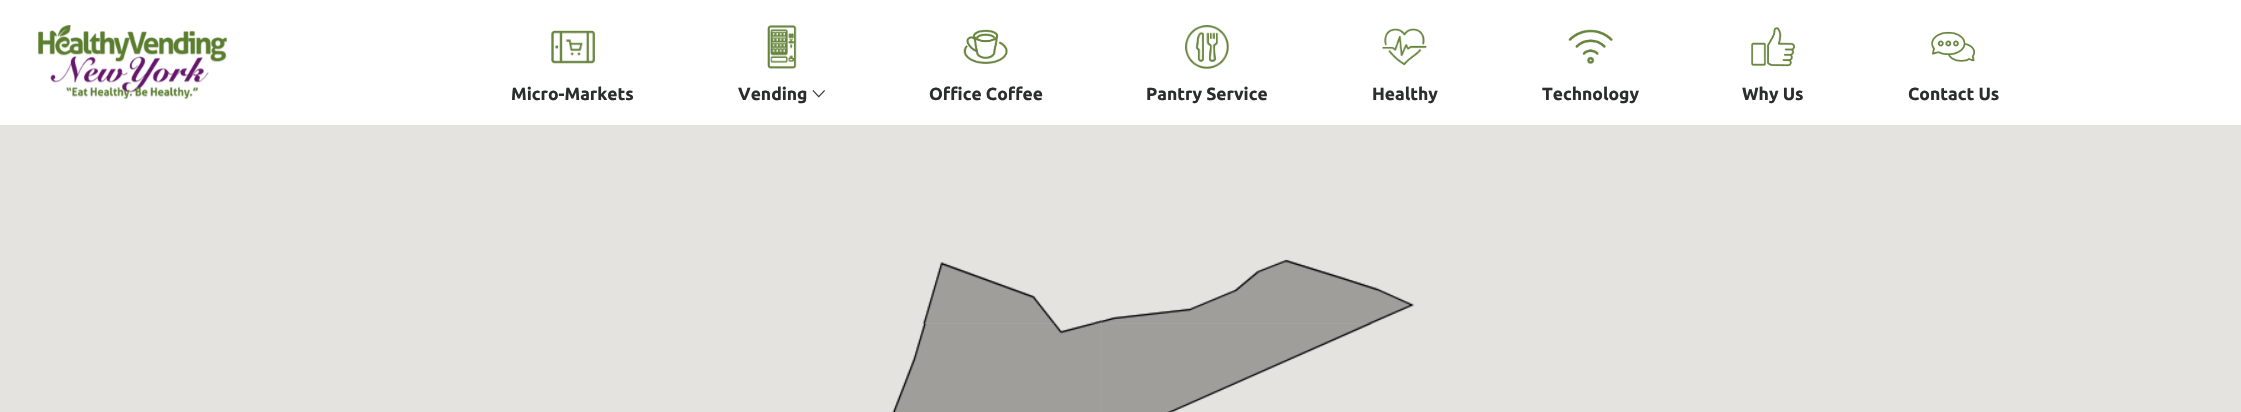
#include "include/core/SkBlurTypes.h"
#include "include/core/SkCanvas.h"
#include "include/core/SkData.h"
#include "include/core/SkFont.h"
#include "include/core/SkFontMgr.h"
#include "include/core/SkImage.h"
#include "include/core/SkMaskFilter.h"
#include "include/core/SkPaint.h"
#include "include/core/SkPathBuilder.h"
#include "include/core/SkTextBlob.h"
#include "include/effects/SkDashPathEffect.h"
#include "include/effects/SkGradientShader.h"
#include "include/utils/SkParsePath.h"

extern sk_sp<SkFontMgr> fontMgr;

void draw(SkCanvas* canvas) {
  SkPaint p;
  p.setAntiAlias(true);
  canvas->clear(SK_ColorWHITE);
  canvas->drawImageRect(SkImages::DeferredFromEncodedData(SkData::MakeFromFileName("images/1.png")), SkRect::MakeLTRB(38, 25, 227, 100), SkSamplingOptions());
  canvas->drawImageRect(SkImages::DeferredFromEncodedData(SkData::MakeFromFileName("images/2.png")), SkRect::MakeLTRB(551, 30, 595, 64), SkSamplingOptions());
  canvas->drawImageRect(SkImages::DeferredFromEncodedData(SkData::MakeFromFileName("images/3.png")), SkRect::MakeLTRB(767, 25, 797, 69), SkSamplingOptions());
  canvas->drawImageRect(SkImages::DeferredFromEncodedData(SkData::MakeFromFileName("images/4.png")), SkRect::MakeLTRB(812, 90, 825, 98), SkSamplingOptions());
  canvas->drawImageRect(SkImages::DeferredFromEncodedData(SkData::MakeFromFileName("images/5.png")), SkRect::MakeLTRB(963, 29, 1008, 64), SkSamplingOptions());
  canvas->drawImageRect(SkImages::DeferredFromEncodedData(SkData::MakeFromFileName("images/6.png")), SkRect::MakeLTRB(1185, 25, 1229, 69), SkSamplingOptions());
  canvas->drawImageRect(SkImages::DeferredFromEncodedData(SkData::MakeFromFileName("images/7.png")), SkRect::MakeLTRB(1382, 28, 1427, 66), SkSamplingOptions());
  canvas->drawImageRect(SkImages::DeferredFromEncodedData(SkData::MakeFromFileName("images/8.png")), SkRect::MakeLTRB(1568, 29, 1613, 64), SkSamplingOptions());
  canvas->drawImageRect(SkImages::DeferredFromEncodedData(SkData::MakeFromFileName("images/9.png")), SkRect::MakeLTRB(1751, 27, 1795, 67), SkSamplingOptions());
  canvas->drawImageRect(SkImages::DeferredFromEncodedData(SkData::MakeFromFileName("images/10.png")), SkRect::MakeLTRB(1931, 31, 1975, 62), SkSamplingOptions());
  canvas->drawImageRect(SkImages::DeferredFromEncodedData(SkData::MakeFromFileName("images/11.png")), SkRect::MakeLTRB(0, 125, 2241, 412), SkSamplingOptions());
  SkFont font1(fontMgr->matchFamilyStyle("Ubuntu", SkFontStyle::Bold()), 17.5f);
  font1.setSubpixel(true);
  p.setColor(SkColorSetRGB(44, 46, 45));
  canvas->drawString("Micro-Markets", 511, 100, font1, p);
  canvas->drawString("Vending", 738, 100, font1, p);
  canvas->drawString("Office Coffee", 929, 100, font1, p);
  canvas->drawString("Pantry Service", 1146, 100, font1, p);
  canvas->drawString("Healthy", 1372, 100, font1, p);
  canvas->drawString("Technology", 1542, 100, font1, p);
  canvas->drawString("Why Us", 1742, 100, font1, p);
  canvas->drawString("Contact Us", 1908, 100, font1, p);
}
